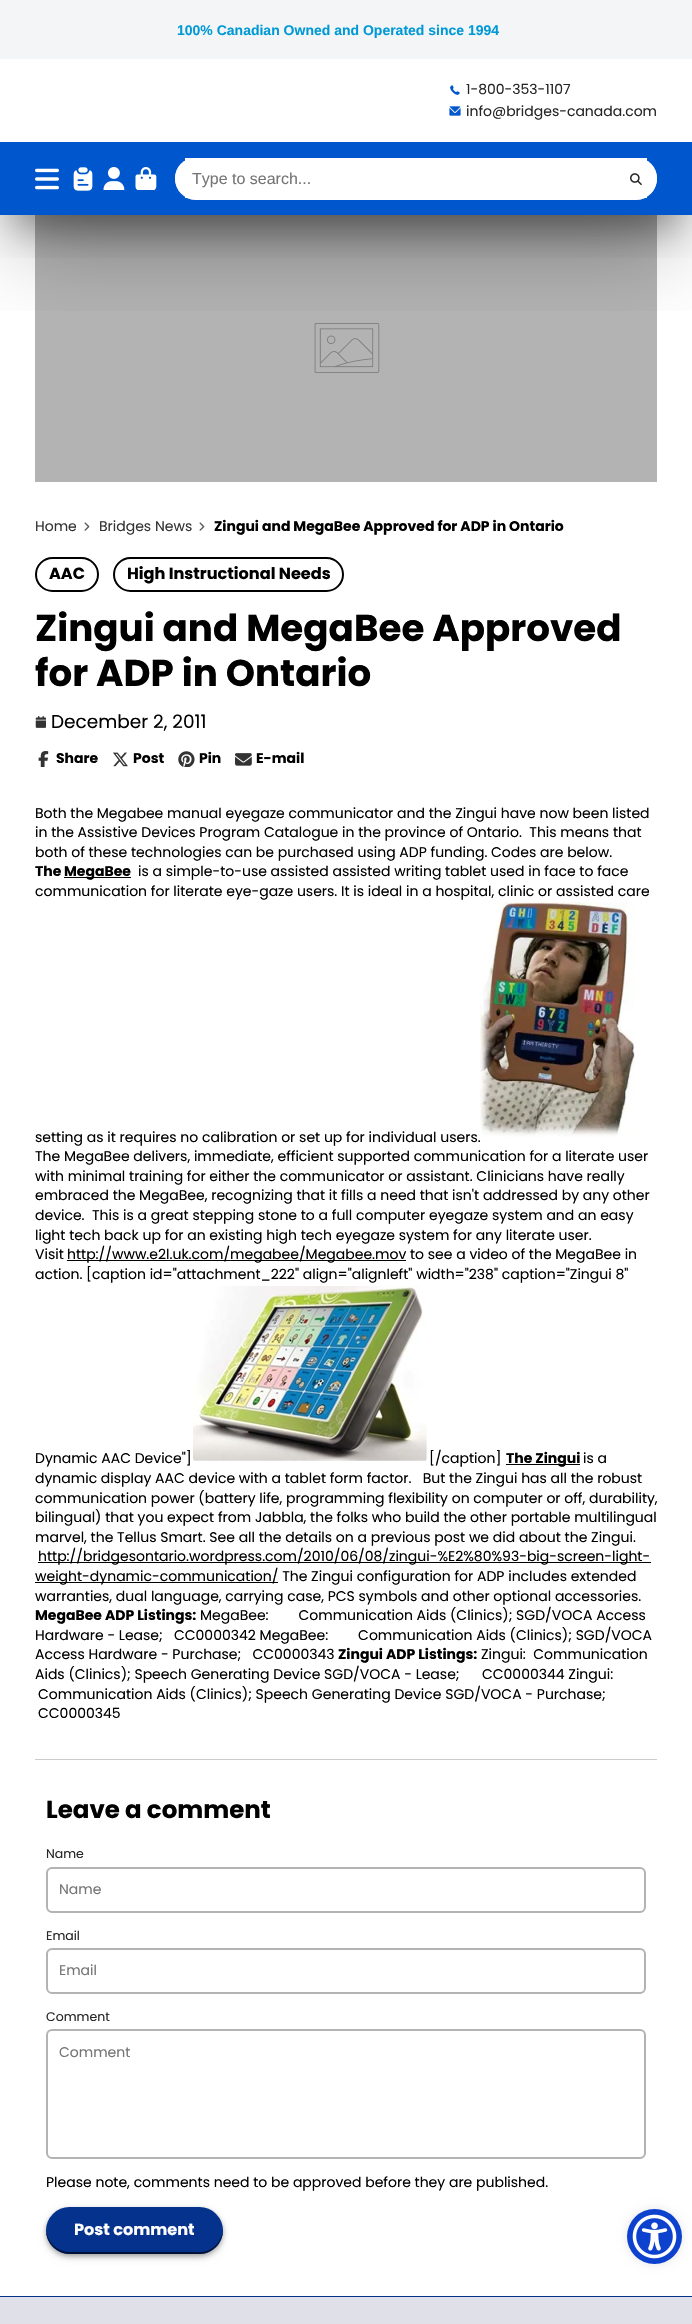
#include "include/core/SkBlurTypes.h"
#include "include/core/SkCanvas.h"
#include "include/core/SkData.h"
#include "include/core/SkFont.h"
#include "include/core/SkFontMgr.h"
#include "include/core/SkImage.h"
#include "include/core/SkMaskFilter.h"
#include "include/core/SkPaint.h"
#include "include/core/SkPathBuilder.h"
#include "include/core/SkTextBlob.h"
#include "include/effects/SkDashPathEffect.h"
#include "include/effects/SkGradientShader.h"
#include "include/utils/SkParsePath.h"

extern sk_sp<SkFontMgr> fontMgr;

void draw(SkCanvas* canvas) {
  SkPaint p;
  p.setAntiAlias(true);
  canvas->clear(SK_ColorWHITE);
  p.setColor(SkColorSetRGB(179, 179, 179));
  canvas->drawRect(SkRect::MakeLTRB(35, 215, 657, 482), p);
  canvas->save();
  canvas->clipRect(SkRect::MakeLTRB(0, 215, 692, 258));
  p.setColor(SkColorSetARGB(102, 0, 0, 0));
  p.setMaskFilter(SkMaskFilter::MakeBlur(kNormal_SkBlurStyle, 19));
  canvas->drawRect(SkRect::MakeLTRB(14, 99, 678, 227), p);
  p.setMaskFilter(nullptr);
  canvas->restore();
  canvas->drawImageRect(SkImages::DeferredFromEncodedData(SkData::MakeFromFileName("images/8.png")), SkRect::MakeLTRB(314, 323, 380, 373), SkSamplingOptions());
  canvas->save();
  canvas->clipRect(SkRect::MakeLTRB(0, 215, 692, 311));
  p.setColor(SkColorSetARGB(77, 0, 0, 0));
  p.setMaskFilter(SkMaskFilter::MakeBlur(kNormal_SkBlurStyle, 44));
  canvas->drawRect(SkRect::MakeLTRB(14, 117, 678, 245), p);
  p.setMaskFilter(nullptr);
  canvas->restore();
  p.setColor(SkColorSetRGB(243, 245, 247));
  canvas->drawRect(SkRect::MakeLTRB(0, 0, 692, 59), p);
  canvas->drawImageRect(SkImages::DeferredFromEncodedData(SkData::MakeFromFileName("images/1.png")), SkRect::MakeLTRB(450, 85, 460, 95), SkSamplingOptions());
  canvas->drawImageRect(SkImages::DeferredFromEncodedData(SkData::MakeFromFileName("images/2.png")), SkRect::MakeLTRB(449, 106, 461, 116), SkSamplingOptions());
  p.setColor(SkColorSetRGB(0, 86, 204));
  canvas->drawRect(SkRect::MakeLTRB(0, 142, 692, 215), p);
  canvas->drawImageRect(SkImages::DeferredFromEncodedData(SkData::MakeFromFileName("images/3.png")), SkRect::MakeLTRB(35, 168, 59, 190), SkSamplingOptions());
  canvas->drawImageRect(SkImages::DeferredFromEncodedData(SkData::MakeFromFileName("images/4.png")), SkRect::MakeLTRB(73, 167, 93, 191), SkSamplingOptions());
  canvas->drawImageRect(SkImages::DeferredFromEncodedData(SkData::MakeFromFileName("images/5.png")), SkRect::MakeLTRB(103, 167, 125, 190), SkSamplingOptions());
  canvas->drawImageRect(SkImages::DeferredFromEncodedData(SkData::MakeFromFileName("images/6.png")), SkRect::MakeLTRB(135, 167, 157, 190), SkSamplingOptions());
  p.setColor(SK_ColorWHITE);
  canvas->drawRoundRect(SkRect::MakeLTRB(175, 158, 657, 198), 20, 20, p);
  canvas->drawRect(SkRect::MakeLTRB(185, 158, 647, 198), p);
  canvas->drawRoundRect(SkRect::MakeLTRB(175, 158, 657, 200), 21, 21, p);
  canvas->drawImageRect(SkImages::DeferredFromEncodedData(SkData::MakeFromFileName("images/7.png")), SkRect::MakeLTRB(630, 173, 642, 185), SkSamplingOptions());
  canvas->drawImageRect(SkImages::DeferredFromEncodedData(SkData::MakeFromFileName("images/9.png")), SkRect::MakeLTRB(84, 522, 90, 531), SkSamplingOptions());
  canvas->drawImageRect(SkImages::DeferredFromEncodedData(SkData::MakeFromFileName("images/9.png")), SkRect::MakeLTRB(199, 522, 205, 531), SkSamplingOptions());
  p.setStyle(SkPaint::kStroke_Style);
  p.setStrokeWidth(2);
  p.setColor(SK_ColorBLACK);
  canvas->drawRoundRect(SkRect::MakeLTRB(36, 558, 98, 591), 16.5f, 16.5f, p);
  canvas->drawRoundRect(SkRect::MakeLTRB(114, 558, 343, 591), 16.5f, 16.5f, p);
  canvas->drawImageRect(SkImages::DeferredFromEncodedData(SkData::MakeFromFileName("images/10.png")), SkRect::MakeLTRB(35, 716, 46, 728), SkSamplingOptions());
  canvas->drawImageRect(SkImages::DeferredFromEncodedData(SkData::MakeFromFileName("images/11.png")), SkRect::MakeLTRB(38, 751, 49, 767), SkSamplingOptions());
  canvas->drawImageRect(SkImages::DeferredFromEncodedData(SkData::MakeFromFileName("images/12.png")), SkRect::MakeLTRB(113, 752, 128, 767), SkSamplingOptions());
  canvas->drawImageRect(SkImages::DeferredFromEncodedData(SkData::MakeFromFileName("images/13.png")), SkRect::MakeLTRB(178, 751, 195, 767), SkSamplingOptions());
  canvas->drawImageRect(SkImages::DeferredFromEncodedData(SkData::MakeFromFileName("images/14.png")), SkRect::MakeLTRB(235, 753, 252, 766), SkSamplingOptions());
  p.setStyle(SkPaint::kFill_Style);
  canvas->drawRect(SkRect::MakeLTRB(64, 877, 131, 878), p);
  canvas->drawImageRect(SkImages::DeferredFromEncodedData(SkData::MakeFromFileName("images/15.png")), SkRect::MakeLTRB(480, 902, 635, 1137), SkSamplingOptions());
  canvas->drawRect(SkRect::MakeLTRB(67, 1260, 406, 1261), p);
  canvas->drawImageRect(SkImages::DeferredFromEncodedData(SkData::MakeFromFileName("images/16.png")), SkRect::MakeLTRB(193, 1286, 427, 1461), SkSamplingOptions());
  canvas->drawRect(SkRect::MakeLTRB(506, 1464, 580, 1465), p);
  canvas->drawRect(SkRect::MakeLTRB(38, 1562, 651, 1563), p);
  canvas->drawRect(SkRect::MakeLTRB(35, 1582, 278, 1583), p);
  p.setColor(SkColorSetRGB(204, 204, 204));
  canvas->drawRect(SkRect::MakeLTRB(35, 1759, 657, 1760), p);
  p.setStyle(SkPaint::kStroke_Style);
  p.setColor(SkColorSetRGB(179, 179, 179));
  canvas->drawRoundRect(SkRect::MakeLTRB(47, 1868, 645, 1912), 5, 5, p);
  canvas->drawRoundRect(SkRect::MakeLTRB(47, 1949, 645, 1993), 5, 5, p);
  canvas->drawRoundRect(SkRect::MakeLTRB(47, 2030, 645, 2158), 5, 5, p);
  p.setStyle(SkPaint::kFill_Style);
  p.setColor(SkColorSetARGB(38, 0, 0, 0));
  p.setMaskFilter(SkMaskFilter::MakeBlur(kNormal_SkBlurStyle, 5));
  canvas->drawRoundRect(SkRect::MakeLTRB(48, 2214, 221, 2256), 21, 21, p);
  p.setMaskFilter(nullptr);
  p.setColor(SkColorSetARGB(77, 0, 0, 0));
  p.setMaskFilter(SkMaskFilter::MakeBlur(kNormal_SkBlurStyle, 2.5f));
  canvas->drawRoundRect(SkRect::MakeLTRB(46, 2209, 223, 2256), 23.5f, 23.5f, p);
  p.setMaskFilter(nullptr);
  p.setColor(SkColorSetRGB(4, 50, 141));
  canvas->drawRoundRect(SkRect::MakeLTRB(46, 2207, 223, 2254), 23.5f, 23.5f, p);
  p.setColor(SkColorSetRGB(1, 18, 52));
  canvas->drawPath(SkPathBuilder().moveTo(46, 2229).lineTo(46, 2230).cubicTo(46, 2243, 57, 2254, 70, 2254).lineTo(200, 2254).cubicTo(212, 2254, 223, 2243, 223, 2230).lineTo(223, 2229).cubicTo(222, 2242, 212, 2252, 200, 2252).lineTo(70, 2252).cubicTo(57, 2252, 47, 2242, 46, 2229).close().detach(), p);
  p.setColor(SkColorSetRGB(223, 224, 232));
  canvas->drawRect(SkRect::MakeLTRB(0, 2297, 692, 2324), p);
  p.setColor(SkColorSetRGB(4, 50, 141));
  canvas->drawRect(SkRect::MakeLTRB(0, 2296, 692, 2297), p);
  p.setColor(SkColorSetARGB(26, 0, 0, 0));
  p.setMaskFilter(SkMaskFilter::MakeBlur(kNormal_SkBlurStyle, 5));
  canvas->drawRoundRect(SkRect::MakeLTRB(627, 2209, 682, 2264), 27.5f, 27.5f, p);
  p.setMaskFilter(nullptr);
  p.setColor(SkColorSetRGB(12, 66, 206));
  canvas->drawCircle(654.5f, 2236.5f, 27.5f, p);
  canvas->drawImageRect(SkImages::DeferredFromEncodedData(SkData::MakeFromFileName("images/17.png")), SkRect::MakeLTRB(632, 2214, 677, 2259), SkSamplingOptions());
  SkFont font1(fontMgr->matchFamilyStyle("Liberation Sans", SkFontStyle::Bold()), 14);
  font1.setSubpixel(true);
  p.setColor(SkColorSetRGB(0, 153, 214));
  canvas->drawString("100% Canadian Owned and Operated since 1994", 177, 35, font1, p);
  SkFont font2(fontMgr->matchFamilyStyle("Poppins", SkFontStyle::Normal()), 14);
  font2.setSubpixel(true);
  p.setColor(SkColorSetRGB(38, 38, 38));
  canvas->drawString("1-800-353-1107", 466, 94, font2, p);
  canvas->drawString("info@bridges-canada.com", 466, 116, font2, p);
  SkFont font3(fontMgr->matchFamilyStyle("Liberation Sans", SkFontStyle::Normal()), 16);
  font3.setSubpixel(true);
  p.setColor(SkColorSetRGB(117, 117, 117));
  canvas->drawString("Type to search...", 192, 184, font3, p);
  p.setColor(SkColorSetRGB(51, 51, 51));
  canvas->drawString("Home", 35, 531, font2, p);
  canvas->drawString("Bridges News", 99, 531, font2, p);
  SkFont font4(fontMgr->matchFamilyStyle("Poppins", SkFontStyle::Bold()), 14);
  font4.setSubpixel(true);
  p.setColor(SK_ColorBLACK);
  canvas->drawString("Zingui and MegaBee Approved for ADP in Ontario", 214, 531, font4, p);
  SkFont font5(fontMgr->matchFamilyStyle("Poppins", SkFontStyle::Bold()), 16.1f);
  font5.setSubpixel(true);
  canvas->drawString("AAC", 49, 579, font5, p);
  canvas->drawString("High Instructional Needs", 127, 579, font5, p);
  SkFont font6(fontMgr->matchFamilyStyle("Poppins", SkFontStyle::Bold()), 37.25f);
  font6.setSubpixel(true);
  canvas->drawString("Zingui and MegaBee Approved", 35, 641, font6, p);
  canvas->drawString("for ADP in Ontario", 35, 686, font6, p);
  SkFont font7(fontMgr->matchFamilyStyle("Poppins", SkFontStyle::Normal()), 18.5f);
  font7.setSubpixel(true);
  canvas->drawString("December 2, 2011", 51, 728, font7, p);
  canvas->drawString("Share", 56, 763, font4, p);
  canvas->drawString("Post", 133, 763, font4, p);
  canvas->drawString("Pin", 199, 763, font4, p);
  canvas->drawString("E-mail", 256, 763, font4, p);
  canvas->drawString("Both the Megabee manual eyegaze communicator and the Zingui have now been listed", 35, 818, font2, p);
  canvas->drawString("in the Assistive Devices Program Catalogue in the province of Ontario.  This means that", 35, 837, font2, p);
  canvas->drawString("both of these technologies can be purchased using ADP funding. Codes are below.", 35, 857, font2, p);
  canvas->drawString("The", 35, 876, font4, p);
  canvas->drawString("MegaBee", 64, 876, font4, p);
  canvas->drawString("is a simple-to-use assisted assisted writing tablet used in face to face", 138, 876, font2, p);
  canvas->drawString("communication for literate eye-gaze users. It is ideal in a hospital, clinic or assisted care", 35, 896, font2, p);
  canvas->drawString("setting as it requires no calibration or set up for individual users.", 35, 1142, font2, p);
  canvas->drawString("The MegaBee delivers, immediate, efficient supported communication for a literate user", 35, 1161, font2, p);
  canvas->drawString("with minimal training for either the communicator or assistant. Clinicians have really", 35, 1181, font2, p);
  canvas->drawString("embraced the MegaBee, recognizing that it fills a need that isn't addressed by any other", 35, 1200, font2, p);
  canvas->drawString("device.  This is a great stepping stone to a full computer eyegaze system and an easy", 35, 1220, font2, p);
  canvas->drawString("light tech back up for an existing high tech eyegaze system for any literate user.", 35, 1240, font2, p);
  canvas->drawString("Visit", 35, 1259, font2, p);
  canvas->drawString("http://www.e2l.uk.com/megabee/Megabee.mov to see a video of the MegaBee in", 67, 1259, font2, p);
  canvas->drawString("action. [caption id=\"attachment_222\" align=\"alignleft\" width=\"238\" caption=\"Zingui 8\"", 35, 1279, font2, p);
  canvas->drawString("Dynamic AAC Device\"]", 35, 1463, font2, p);
  canvas->drawString("[/caption]", 429, 1463, font2, p);
  canvas->drawString("The Zingui", 506, 1463, font4, p);
  canvas->drawString("is a", 583, 1463, font2, p);
  canvas->drawString("dynamic display AAC device with a tablet form factor.   But the Zingui has all the robust", 35, 1483, font2, p);
  canvas->drawString("communication power (battery life, programming flexibility on computer or off, durability,", 35, 1503, font2, p);
  canvas->drawString("bilingual) that you expect from Jabbla, the folks who build the other portable multilingual", 35, 1522, font2, p);
  canvas->drawString("marvel, the Tellus Smart. See all the details on a previous post we did about the Zingui.", 35, 1542, font2, p);
  canvas->drawString("http://bridgesontario.wordpress.com/2010/06/08/zingui-%E2%80%93-big-screen-light-", 38, 1561, font2, p);
  canvas->drawString("weight-dynamic-communication/ The Zingui configuration for ADP includes extended", 35, 1581, font2, p);
  canvas->drawString("warranties, dual language, carrying case, PCS symbols and other optional accessories.", 35, 1601, font2, p);
  canvas->drawString("MegaBee ADP Listings:", 35, 1620, font4, p);
  canvas->drawString("MegaBee:        Communication Aids (Clinics); SGD/VOCA Access", 200, 1620, font2, p);
  canvas->drawString("Hardware - Lease;   CC0000342 MegaBee:        Communication Aids (Clinics); SGD/VOCA", 35, 1640, font2, p);
  canvas->drawString("Access Hardware - Purchase;   CC0000343", 35, 1659, font2, p);
  canvas->drawString("Zingui ADP Listings:", 338, 1659, font4, p);
  canvas->drawString("Zingui:  Communication", 481, 1659, font2, p);
  canvas->drawString("Aids (Clinics); Speech Generating Device SGD/VOCA - Lease;      CC0000344 Zingui:", 35, 1679, font2, p);
  canvas->drawString("Communication Aids (Clinics); Speech Generating Device SGD/VOCA - Purchase;", 38, 1699, font2, p);
  canvas->drawString("CC0000345", 38, 1718, font2, p);
  SkFont font8(fontMgr->matchFamilyStyle("Poppins", SkFontStyle::Bold()), 24.5f);
  font8.setSubpixel(true);
  canvas->drawString("Leave a comment", 46, 1818, font8, p);
  SkFont font9(fontMgr->matchFamilyStyle("Poppins", SkFontStyle::Normal()), 12.5f);
  font9.setSubpixel(true);
  p.setColor(SkColorSetRGB(38, 38, 38));
  canvas->drawString("Name", 46, 1858, font9, p);
  p.setColor(SkColorSetRGB(117, 117, 117));
  canvas->drawString("Name", 59, 1894, font2, p);
  p.setColor(SkColorSetRGB(38, 38, 38));
  canvas->drawString("Email", 46, 1940, font9, p);
  p.setColor(SkColorSetRGB(117, 117, 117));
  canvas->drawString("Email", 59, 1975, font2, p);
  p.setColor(SkColorSetRGB(38, 38, 38));
  canvas->drawString("Comment", 46, 2021, font9, p);
  p.setColor(SkColorSetRGB(117, 117, 117));
  canvas->drawString("Comment", 59, 2057, font2, p);
  p.setColor(SK_ColorBLACK);
  canvas->drawString("Please note, comments need to be approved before they are published.", 46, 2187, font2, p);
  p.setColor(SK_ColorWHITE);
  canvas->drawString("Post comment", 74, 2235, font5, p);
}
